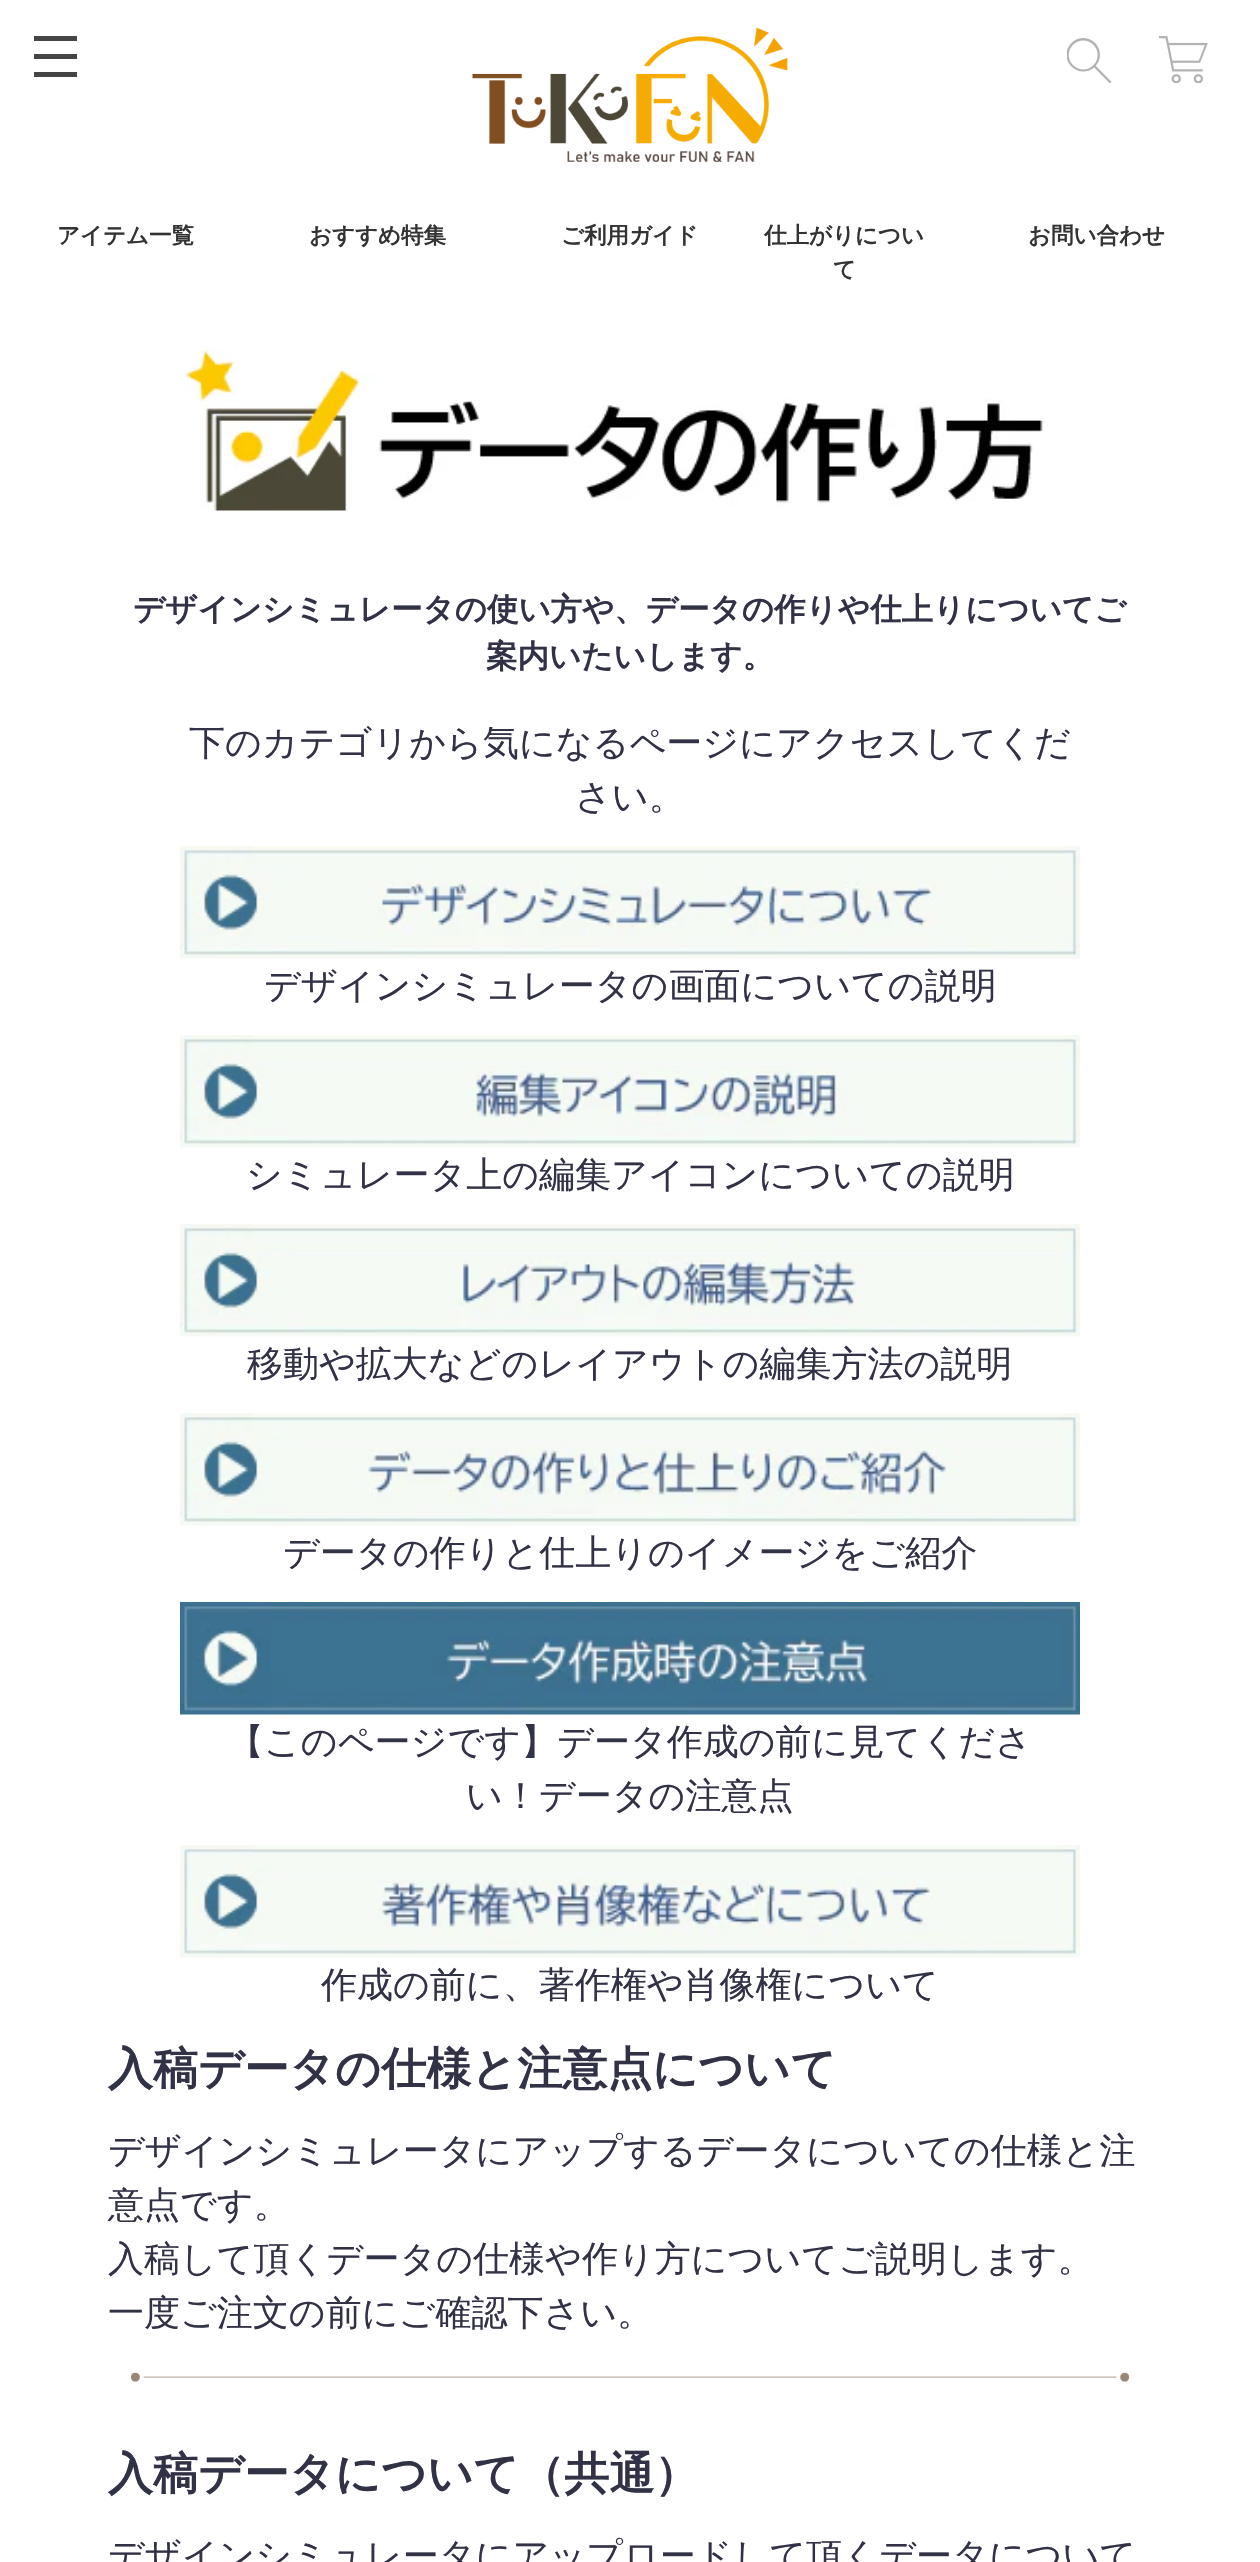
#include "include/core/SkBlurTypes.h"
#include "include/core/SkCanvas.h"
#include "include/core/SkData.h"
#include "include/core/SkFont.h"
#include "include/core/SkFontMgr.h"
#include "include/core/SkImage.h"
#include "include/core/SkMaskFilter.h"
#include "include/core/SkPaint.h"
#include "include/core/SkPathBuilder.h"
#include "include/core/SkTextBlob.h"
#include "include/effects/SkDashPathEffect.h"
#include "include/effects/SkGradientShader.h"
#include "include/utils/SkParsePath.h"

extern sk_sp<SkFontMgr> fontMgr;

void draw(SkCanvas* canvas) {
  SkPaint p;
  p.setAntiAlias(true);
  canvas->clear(SK_ColorWHITE);
  p.setColor(SkColorSetRGB(69, 69, 69));
  canvas->drawRect(SkRect::MakeLTRB(34, 36, 77, 41), p);
  canvas->drawRect(SkRect::MakeLTRB(34, 54, 77, 59), p);
  canvas->drawRect(SkRect::MakeLTRB(34, 72, 77, 77), p);
  canvas->drawImageRect(SkImages::DeferredFromEncodedData(SkData::MakeFromFileName("images/1.png")), SkRect::MakeLTRB(472, 27, 788, 162), SkSamplingOptions());
  canvas->drawImageRect(SkImages::DeferredFromEncodedData(SkData::MakeFromFileName("images/2.png")), SkRect::MakeLTRB(1067, 38, 1112, 83), SkSamplingOptions());
  canvas->drawImageRect(SkImages::DeferredFromEncodedData(SkData::MakeFromFileName("images/3.png")), SkRect::MakeLTRB(1159, 36, 1208, 83), SkSamplingOptions());
  canvas->drawImageRect(SkImages::DeferredFromEncodedData(SkData::MakeFromFileName("images/4.png")), SkRect::MakeLTRB(184, 348, 1045, 511), SkSamplingOptions());
  canvas->drawImageRect(SkImages::DeferredFromEncodedData(SkData::MakeFromFileName("images/5.png")), SkRect::MakeLTRB(180, 846, 1080, 959), SkSamplingOptions());
  canvas->drawImageRect(SkImages::DeferredFromEncodedData(SkData::MakeFromFileName("images/6.png")), SkRect::MakeLTRB(180, 1035, 1080, 1148), SkSamplingOptions());
  canvas->drawImageRect(SkImages::DeferredFromEncodedData(SkData::MakeFromFileName("images/7.png")), SkRect::MakeLTRB(180, 1224, 1080, 1337), SkSamplingOptions());
  canvas->drawImageRect(SkImages::DeferredFromEncodedData(SkData::MakeFromFileName("images/8.png")), SkRect::MakeLTRB(180, 1413, 1080, 1526), SkSamplingOptions());
  canvas->drawImageRect(SkImages::DeferredFromEncodedData(SkData::MakeFromFileName("images/9.png")), SkRect::MakeLTRB(180, 1602, 1080, 1715), SkSamplingOptions());
  canvas->drawImageRect(SkImages::DeferredFromEncodedData(SkData::MakeFromFileName("images/10.png")), SkRect::MakeLTRB(180, 1845, 1080, 1958), SkSamplingOptions());
  canvas->drawImageRect(SkImages::DeferredFromEncodedData(SkData::MakeFromFileName("images/11.png")), SkRect::MakeLTRB(131, 2372, 1129, 2382), SkSamplingOptions());
  SkFont font1(fontMgr->matchFamilyStyle("WenQuanYi Zen Hei", SkFontStyle::Bold()), 22.5f);
  font1.setSubpixel(true);
  p.setColor(SkColorSetRGB(51, 51, 51));
  canvas->drawString("アイテム一覧", 57, 243, font1, p);
  canvas->drawString("おすすめ特集", 309, 243, font1, p);
  canvas->drawString("ご利用ガイド", 561, 243, font1, p);
  canvas->drawString("仕上がりについ", 764, 243, font1, p);
  canvas->drawString("て", 833, 277, font1, p);
  canvas->drawString("お問い合わせ", 1028, 243, font1, p);
  SkFont font2(fontMgr->matchFamilyStyle("WenQuanYi Zen Hei", SkFontStyle::Bold()), 31.5f);
  font2.setSubpixel(true);
  p.setColor(SkColorSetRGB(50, 50, 70));
  canvas->drawString("デザインシミュレータの使い方や、データの作りや仕上りについてご", 133, 620, font2, p);
  canvas->drawString("案内いたいします。", 486, 667, font2, p);
  SkFont font3(fontMgr->matchFamilyStyle("WenQuanYi Zen Hei", SkFontStyle(500, SkFontStyle::kNormal_Width, SkFontStyle::kUpright_Slant)), 36);
  font3.setSubpixel(true);
  canvas->drawString("下のカテゴリから気になるページにアクセスしてくだ", 189, 755, font3, p);
  canvas->drawString("さい。", 575, 809, font3, p);
  canvas->drawString("デザインシミュレータの画面についての説明", 264, 998, font3, p);
  canvas->drawString("シミュレータ上の編集アイコンについての説明", 246, 1187, font3, p);
  canvas->drawString("移動や拡大などのレイアウトの編集方法の説明", 247, 1376, font3, p);
  canvas->drawString("データの作りと仕上りのイメージをご紹介", 283, 1565, font3, p);
  canvas->drawString("【このページです】データ作成の前に見てくださ", 228, 1754, font3, p);
  canvas->drawString("い！データの注意点", 466, 1808, font3, p);
  canvas->drawString("作成の前に、著作権や肖像権について", 321, 1997, font3, p);
  SkFont font4(fontMgr->matchFamilyStyle("WenQuanYi Zen Hei", SkFontStyle::Bold()), 45);
  font4.setSubpixel(true);
  canvas->drawString("入稿データの仕様と注意点について", 108, 2084, font4, p);
  canvas->drawString("デザインシミュレータにアップするデータについての仕様と注", 108, 2163, font3, p);
  canvas->drawString("意点です。", 108, 2217, font3, p);
  canvas->drawString("入稿して頂くデータの仕様や作り方についてご説明します。", 108, 2271, font3, p);
  canvas->drawString("一度ご注文の前にご確認下さい。", 108, 2325, font3, p);
  canvas->drawString("入稿データについて（共通）", 108, 2489, font4, p);
  canvas->drawString("デザインシミュレータにアップロードして頂くデータについて", 108, 2568, font3, p);
}
